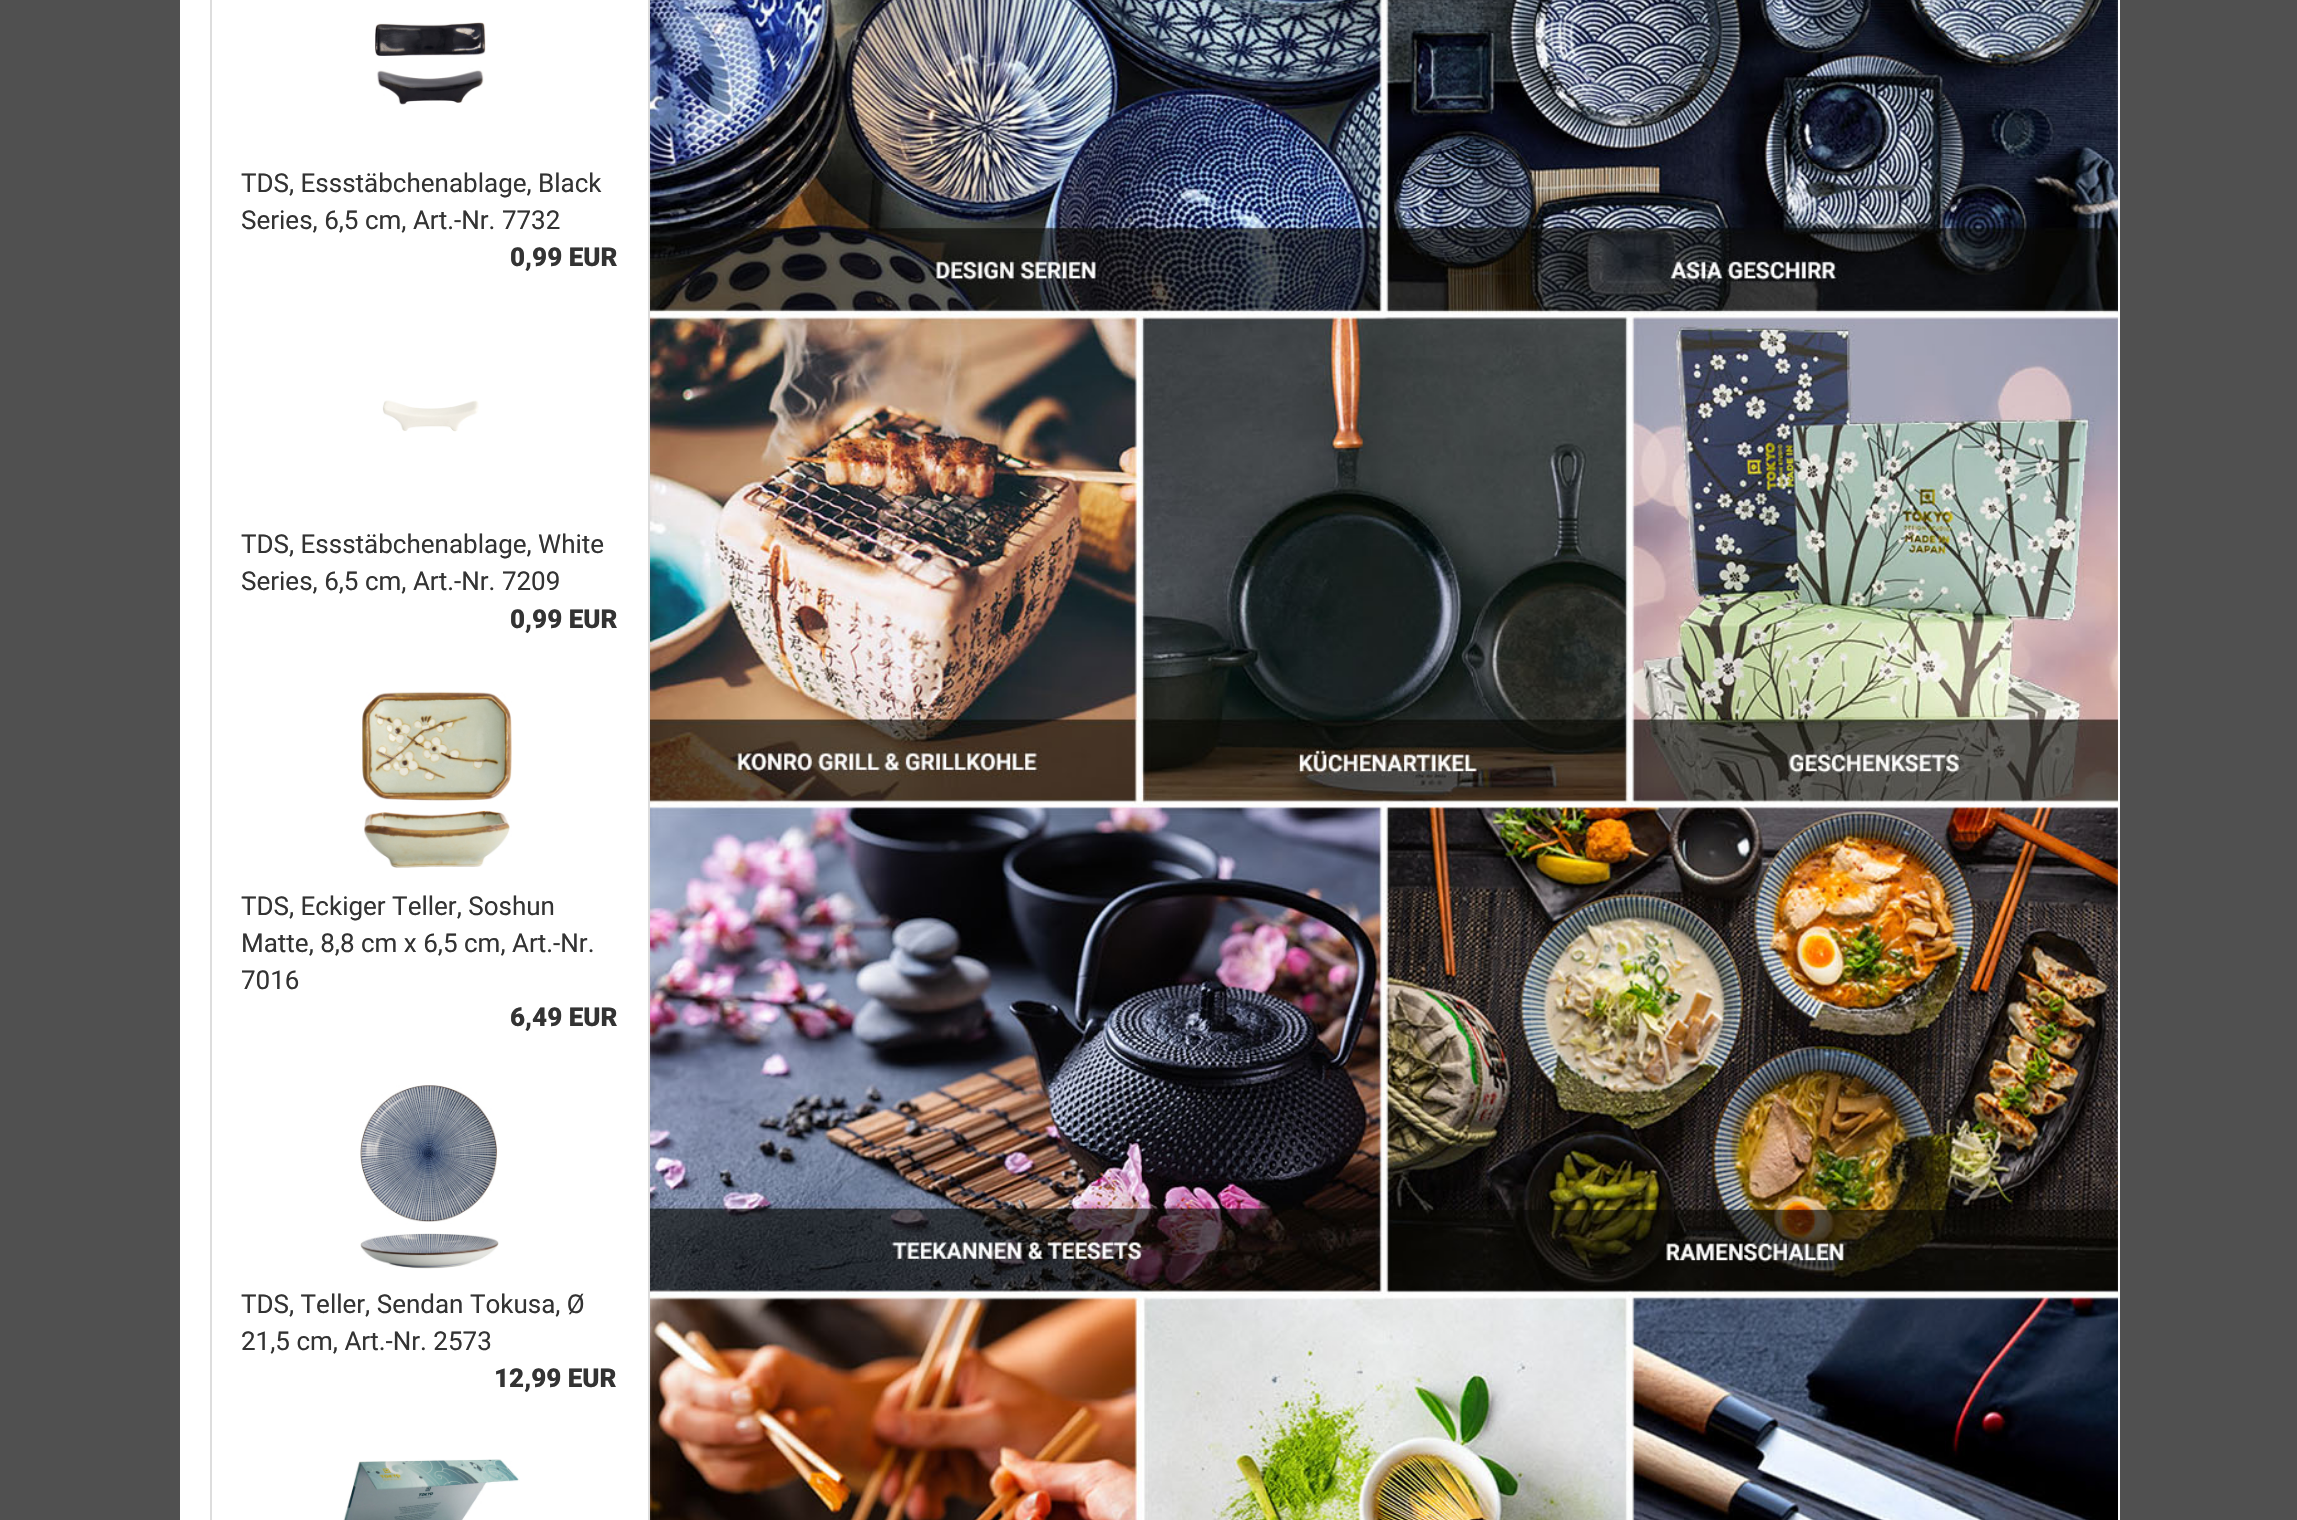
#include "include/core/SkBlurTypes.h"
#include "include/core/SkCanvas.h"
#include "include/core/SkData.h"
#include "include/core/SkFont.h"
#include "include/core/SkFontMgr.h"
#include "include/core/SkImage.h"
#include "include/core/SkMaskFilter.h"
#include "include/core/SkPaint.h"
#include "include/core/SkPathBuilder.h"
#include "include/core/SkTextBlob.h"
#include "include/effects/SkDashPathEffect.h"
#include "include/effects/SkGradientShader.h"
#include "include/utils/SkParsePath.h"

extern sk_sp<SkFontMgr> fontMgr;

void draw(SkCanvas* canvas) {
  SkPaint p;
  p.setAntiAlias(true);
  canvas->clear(SkColorSetRGB(80, 80, 80));
  p.setColor(SK_ColorWHITE);
  canvas->drawRect(SkRect::MakeLTRB(180, 0, 2120, 1520), p);
  p.setStyle(SkPaint::kStroke_Style);
  p.setStrokeWidth(2);
  p.setColor(SkColorSetRGB(221, 221, 221));
  canvas->drawRect(SkRect::MakeLTRB(211, -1, 649, 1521), p);
  canvas->drawImageRect(SkImages::DeferredFromEncodedData(SkData::MakeFromFileName("images/1.png")), SkRect::MakeLTRB(375, 22, 486, 105), SkSamplingOptions());
  canvas->drawImageRect(SkImages::DeferredFromEncodedData(SkData::MakeFromFileName("images/2.png")), SkRect::MakeLTRB(382, 400, 479, 432), SkSamplingOptions());
  canvas->drawImageRect(SkImages::DeferredFromEncodedData(SkData::MakeFromFileName("images/3.png")), SkRect::MakeLTRB(362, 691, 512, 868), SkSamplingOptions());
  canvas->drawImageRect(SkImages::DeferredFromEncodedData(SkData::MakeFromFileName("images/4.png")), SkRect::MakeLTRB(360, 1085, 499, 1269), SkSamplingOptions());
  canvas->drawImageRect(SkImages::DeferredFromEncodedData(SkData::MakeFromFileName("images/5.png")), SkRect::MakeLTRB(343, 1459, 520, 1520), SkSamplingOptions());
  canvas->drawImageRect(SkImages::DeferredFromEncodedData(SkData::MakeFromFileName("images/6.png")), SkRect::MakeLTRB(650, 0, 2118, 1520), SkSamplingOptions());
  SkFont font1(fontMgr->matchFamilyStyle("Roboto", SkFontStyle::Normal()), 26);
  font1.setSubpixel(true);
  p.setStyle(SkPaint::kFill_Style);
  p.setColor(SkColorSetRGB(51, 51, 51));
  canvas->drawString("TDS, Essstäbchenablage, Black", 241, 192, font1, p);
  canvas->drawString("Series, 6,5 cm, Art.-Nr. 7732", 241, 229, font1, p);
  SkFont font2(fontMgr->matchFamilyStyle("Roboto", SkFontStyle(900, SkFontStyle::kNormal_Width, SkFontStyle::kUpright_Slant)), 26);
  font2.setSubpixel(true);
  canvas->drawString("0,99 EUR", 510, 266, font2, p);
  canvas->drawString("TDS, Essstäbchenablage, White", 241, 553, font1, p);
  canvas->drawString("Series, 6,5 cm, Art.-Nr. 7209", 241, 590, font1, p);
  canvas->drawString("0,99 EUR", 510, 628, font2, p);
  canvas->drawString("TDS, Eckiger Teller, Soshun", 241, 915, font1, p);
  canvas->drawString("Matte, 8,8 cm x 6,5 cm, Art.-Nr.", 241, 952, font1, p);
  canvas->drawString("7016", 241, 989, font1, p);
  canvas->drawString("6,49 EUR", 510, 1026, font2, p);
  canvas->drawString("TDS, Teller, Sendan Tokusa, Ø", 241, 1313, font1, p);
  canvas->drawString("21,5 cm, Art.-Nr. 2573", 241, 1350, font1, p);
  canvas->drawString("12,99 EUR", 494, 1387, font2, p);
}
